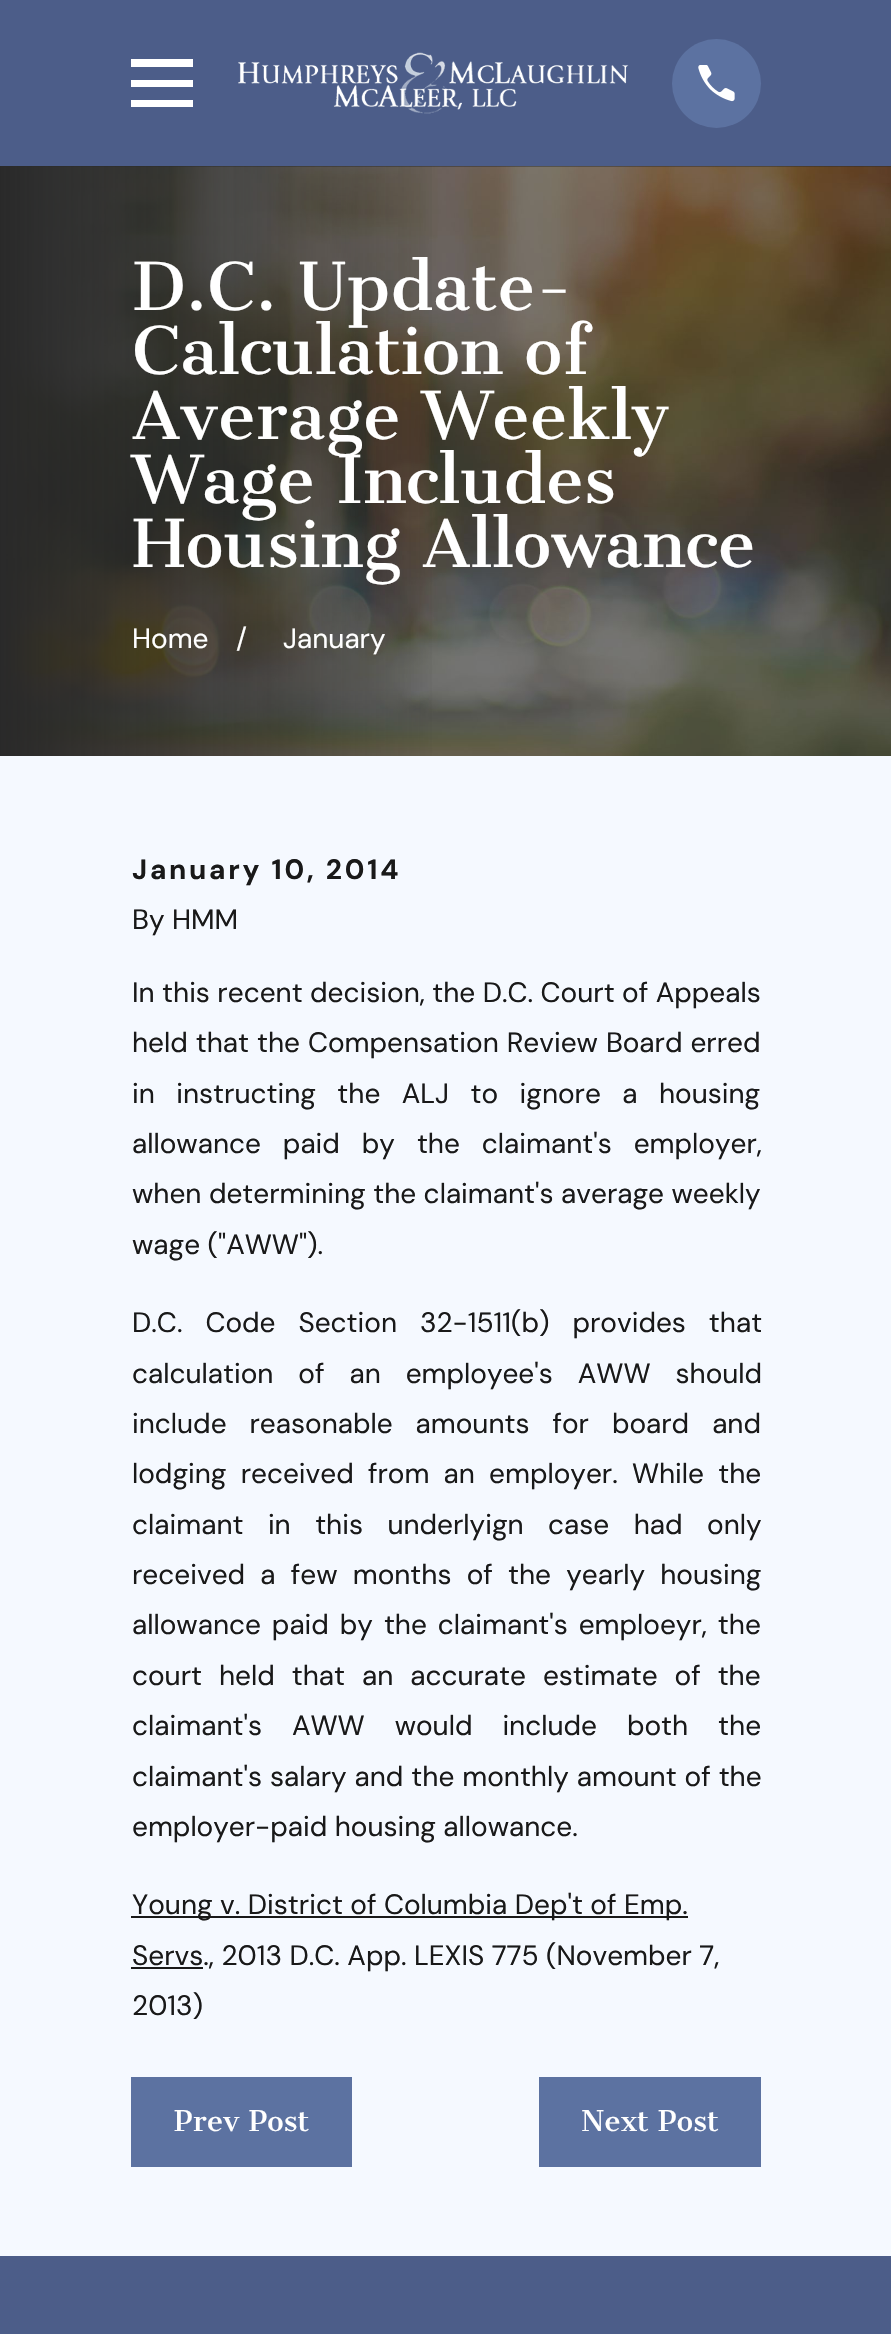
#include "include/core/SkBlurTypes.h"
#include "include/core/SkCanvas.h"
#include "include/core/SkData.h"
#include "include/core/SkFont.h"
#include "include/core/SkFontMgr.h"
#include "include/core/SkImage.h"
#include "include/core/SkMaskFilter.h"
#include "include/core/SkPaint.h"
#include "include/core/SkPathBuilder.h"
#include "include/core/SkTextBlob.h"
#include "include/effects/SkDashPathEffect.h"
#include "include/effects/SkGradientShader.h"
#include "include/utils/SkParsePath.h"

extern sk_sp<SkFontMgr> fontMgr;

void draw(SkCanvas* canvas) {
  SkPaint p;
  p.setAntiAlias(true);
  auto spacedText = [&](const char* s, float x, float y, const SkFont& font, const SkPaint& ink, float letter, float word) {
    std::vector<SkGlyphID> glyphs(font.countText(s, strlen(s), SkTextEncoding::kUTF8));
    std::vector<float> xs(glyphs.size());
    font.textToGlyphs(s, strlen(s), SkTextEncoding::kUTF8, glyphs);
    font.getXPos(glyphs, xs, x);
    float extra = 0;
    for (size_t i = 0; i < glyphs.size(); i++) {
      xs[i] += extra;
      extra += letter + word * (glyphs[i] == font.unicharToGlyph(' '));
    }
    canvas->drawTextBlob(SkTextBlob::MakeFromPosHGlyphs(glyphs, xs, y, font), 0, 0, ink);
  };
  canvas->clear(SkColorSetRGB(245, 249, 255));
  p.setColor(SkColorSetRGB(76, 93, 137));
  canvas->drawRect(SkRect::MakeLTRB(0, 0, 891, 166), p);
  p.setColor(SK_ColorWHITE);
  canvas->drawPath(SkPathBuilder().moveTo(131, 59).lineTo(131, 67).lineTo(193, 67).lineTo(193, 59).close().moveTo(131, 80).lineTo(131, 87).lineTo(193, 87).lineTo(193, 80).close().moveTo(131, 100).lineTo(131, 107).lineTo(193, 107).lineTo(193, 100).close().detach(), p);
  canvas->drawImageRect(SkImages::DeferredFromEncodedData(SkData::MakeFromFileName("images/1.png")), SkRect::MakeLTRB(238, 52, 629, 114), SkSamplingOptions());
  p.setColor(SkColorSetRGB(92, 114, 161));
  canvas->drawCircle(716.5f, 83.5f, 44.5f, p);
  canvas->drawImageRect(SkImages::DeferredFromEncodedData(SkData::MakeFromFileName("images/2.png")), SkRect::MakeLTRB(698, 65, 735, 102), SkSamplingOptions());
  p.setColor(SkColorSetRGB(41, 41, 41));
  canvas->drawRect(SkRect::MakeLTRB(3, 166, 891, 756), p);
  canvas->drawImageRect(SkImages::DeferredFromEncodedData(SkData::MakeFromFileName("images/3.png")), SkRect::MakeLTRB(3, 166, 891, 756), SkSamplingOptions());
  {
    const SkColor colors[] = {SkColorSetRGB(41, 41, 41), SkColorSetARGB(0, 41, 41, 41), SkColorSetARGB(0, 0, 0, 0)};
    const float stops[] = {0, 0.5f, 1};
    const SkPoint ends[] = {{0, 461}, {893, 461}};
    p.setShader(SkGradientShader::MakeLinear(ends, colors, stops, 3, SkTileMode::kClamp));
    p.setAlpha(255);
  }
  canvas->drawRect(SkRect::MakeLTRB(0, 166, 432, 756), p);
  p.setShader(nullptr);
  p.setColor(SkColorSetRGB(25, 25, 25));
  canvas->drawRect(SkRect::MakeLTRB(131, 1916, 688, 1918), p);
  canvas->drawRect(SkRect::MakeLTRB(131, 1967, 203, 1969), p);
  p.setColor(SkColorSetRGB(92, 114, 161));
  canvas->drawRect(SkRect::MakeLTRB(131, 2077, 352, 2167), p);
  canvas->drawRect(SkRect::MakeLTRB(539, 2077, 761, 2167), p);
  p.setColor(SkColorSetRGB(76, 93, 137));
  canvas->drawRect(SkRect::MakeLTRB(0, 2256, 891, 2334), p);
  SkFont font1(fontMgr->matchFamilyStyle("Cantata One", SkFontStyle::Normal()), 64.5f);
  font1.setSubpixel(true);
  p.setColor(SK_ColorWHITE);
  canvas->drawString("D.C. Update-", 132, 310, font1, p);
  canvas->drawString("Calculation of", 132, 374, font1, p);
  canvas->drawString("Average Weekly", 132, 439, font1, p);
  canvas->drawString("Wage Includes", 132, 503, font1, p);
  canvas->drawString("Housing Allowance", 132, 567, font1, p);
  SkFont font2(fontMgr->matchFamilyStyle("DM Sans", SkFontStyle::Normal()), 28);
  font2.setSubpixel(true);
  canvas->drawString("Home", 132, 648, font2, p);
  canvas->drawString("/", 236, 648, font2, p);
  canvas->drawString("January", 283, 648, font2, p);
  SkFont font3(fontMgr->matchFamilyStyle("DM Sans", SkFontStyle::Bold()), 28);
  font3.setSubpixel(true);
  p.setColor(SkColorSetRGB(25, 25, 25));
  spacedText("January 10, 2014", 132, 879, font3, p, 2.75f, 0);
  canvas->drawString("By HMM", 132, 929, font2, p);
  canvas->drawString("In this recent decision, the D.C. Court of Appeals", 132, 1002, font2, p);
  spacedText("held that the Compensation Review Board erred", 132, 1052, font2, p, 0, 0.5f);
  spacedText("in instructing the ALJ to ignore a housing", 132, 1103, font2, p, 0, 14);
  spacedText("allowance paid by the claimant's employer,", 132, 1153, font2, p, 0, 14.5f);
  canvas->drawString("when determining the claimant's average weekly", 132, 1203, font2, p);
  canvas->drawString("wage (\"AWW\").", 132, 1254, font2, p);
  spacedText("D.C. Code Section 32-1511(b) provides that", 132, 1332, font2, p, 0, 15.5f);
  spacedText("calculation of an employee's AWW should", 132, 1383, font2, p, 0, 17.5f);
  spacedText("include reasonable amounts for board and", 132, 1433, font2, p, 0, 15.5f);
  spacedText("lodging received from an employer. While the", 132, 1483, font2, p, 0, 6.75f);
  spacedText("claimant in this underlyign case had only", 132, 1534, font2, p, 0, 17);
  spacedText("received a few months of the yearly housing", 132, 1584, font2, p, 0, 7.75f);
  spacedText("allowance paid by the claimant's emploeyr, the", 132, 1634, font2, p, 0, 3.5f);
  spacedText("court held that an accurate estimate of the", 132, 1685, font2, p, 0, 9.5f);
  spacedText("claimant's AWW would include both the", 132, 1735, font2, p, 0, 22.5f);
  spacedText("claimant's salary and the monthly amount of the", 132, 1786, font2, p, 0, 0.5f);
  canvas->drawString("employer-paid housing allowance.", 132, 1836, font2, p);
  canvas->drawString("Young v. District of Columbia Dep't of Emp.", 132, 1914, font2, p);
  canvas->drawString("Servs., 2013 D.C. App. LEXIS 775 (November 7,", 132, 1965, font2, p);
  canvas->drawString("2013)", 132, 2015, font2, p);
  SkFont font4(fontMgr->matchFamilyStyle("Cantata One", SkFontStyle::Normal()), 28);
  font4.setSubpixel(true);
  p.setColor(SK_ColorWHITE);
  canvas->drawString("Prev Post", 174, 2131, font4, p);
  canvas->drawString("Next Post", 581, 2131, font4, p);
}
